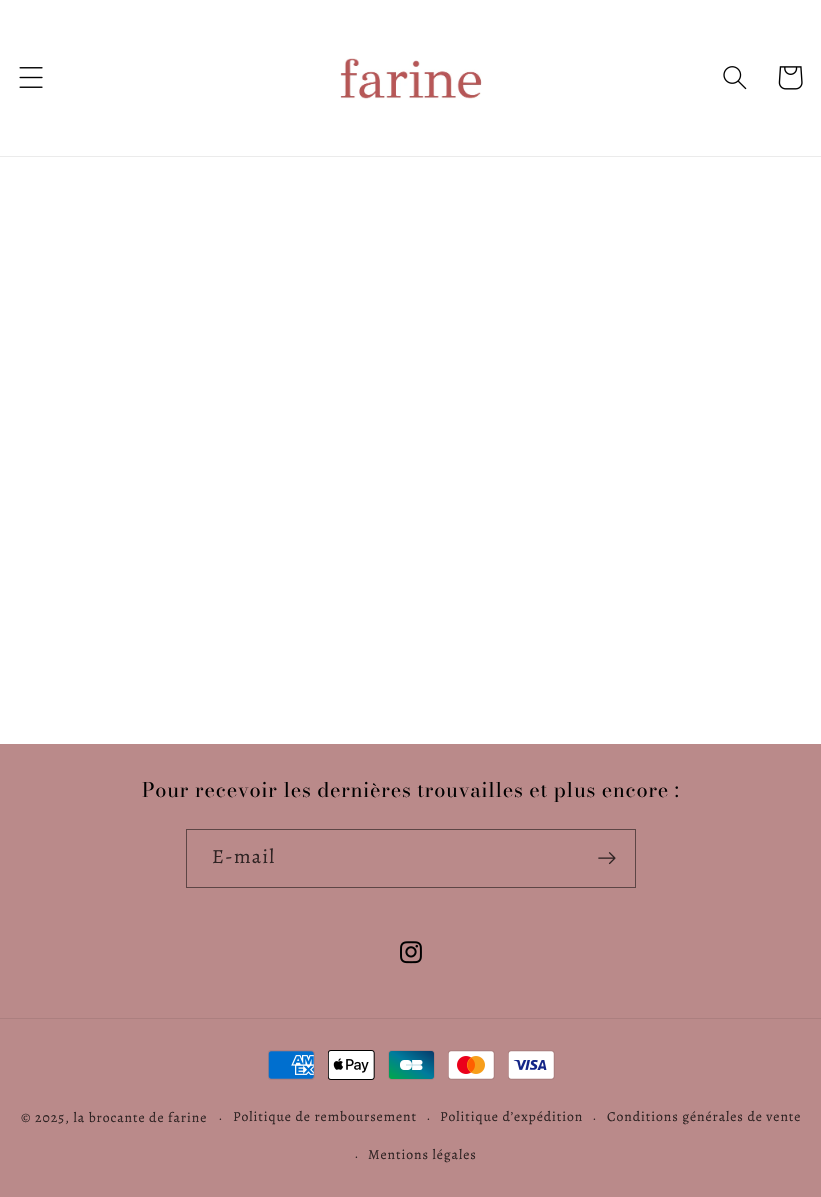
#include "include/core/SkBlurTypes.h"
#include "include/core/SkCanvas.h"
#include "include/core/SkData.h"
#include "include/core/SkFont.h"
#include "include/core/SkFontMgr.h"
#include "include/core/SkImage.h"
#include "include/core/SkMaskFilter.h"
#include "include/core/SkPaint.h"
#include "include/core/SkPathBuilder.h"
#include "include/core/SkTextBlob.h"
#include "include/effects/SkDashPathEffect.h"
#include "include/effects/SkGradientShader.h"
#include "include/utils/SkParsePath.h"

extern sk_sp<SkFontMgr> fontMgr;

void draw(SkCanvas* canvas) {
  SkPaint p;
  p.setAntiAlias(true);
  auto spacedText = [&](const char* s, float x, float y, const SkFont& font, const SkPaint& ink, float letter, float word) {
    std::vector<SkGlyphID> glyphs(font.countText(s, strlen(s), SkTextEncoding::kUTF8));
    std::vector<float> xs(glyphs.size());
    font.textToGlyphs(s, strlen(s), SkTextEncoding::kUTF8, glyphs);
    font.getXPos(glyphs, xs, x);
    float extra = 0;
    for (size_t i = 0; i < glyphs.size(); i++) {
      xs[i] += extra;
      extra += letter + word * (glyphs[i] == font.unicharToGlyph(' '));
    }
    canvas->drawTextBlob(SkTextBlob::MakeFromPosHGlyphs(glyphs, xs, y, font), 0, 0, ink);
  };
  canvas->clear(SK_ColorWHITE);
  p.setColor(SkColorSetRGB(235, 235, 235));
  canvas->drawRect(SkRect::MakeLTRB(0, 156, 821, 157), p);
  canvas->drawImageRect(SkImages::DeferredFromEncodedData(SkData::MakeFromFileName("images/1.png")), SkRect::MakeLTRB(19, 67, 43, 88), SkSamplingOptions());
  canvas->drawImageRect(SkImages::DeferredFromEncodedData(SkData::MakeFromFileName("images/2.png")), SkRect::MakeLTRB(340, 58, 482, 99), SkSamplingOptions());
  canvas->drawImageRect(SkImages::DeferredFromEncodedData(SkData::MakeFromFileName("images/3.png")), SkRect::MakeLTRB(723, 66, 747, 90), SkSamplingOptions());
  canvas->drawImageRect(SkImages::DeferredFromEncodedData(SkData::MakeFromFileName("images/4.png")), SkRect::MakeLTRB(778, 66, 803, 90), SkSamplingOptions());
  p.setColor(SkColorSetRGB(186, 138, 138));
  canvas->drawRect(SkRect::MakeLTRB(0, 744, 821, 1197), p);
  p.setStyle(SkPaint::kStroke_Style);
  p.setStrokeWidth(1);
  p.setColor(SkColorSetRGB(93, 69, 69));
  canvas->drawRect(SkRect::MakeLTRB(186.5f, 829.5f, 635.5f, 887.5f), p);
  canvas->drawImageRect(SkImages::DeferredFromEncodedData(SkData::MakeFromFileName("images/5.png")), SkRect::MakeLTRB(598, 852, 616, 865), SkSamplingOptions());
  canvas->drawImageRect(SkImages::DeferredFromEncodedData(SkData::MakeFromFileName("images/6.png")), SkRect::MakeLTRB(400, 941, 422, 964), SkSamplingOptions());
  p.setStyle(SkPaint::kFill_Style);
  p.setColor(SkColorSetRGB(171, 127, 127));
  canvas->drawRect(SkRect::MakeLTRB(0, 1018, 821, 1019), p);
  canvas->drawImageRect(SkImages::DeferredFromEncodedData(SkData::MakeFromFileName("images/7.png")), SkRect::MakeLTRB(268, 1050, 315, 1080), SkSamplingOptions());
  canvas->drawImageRect(SkImages::DeferredFromEncodedData(SkData::MakeFromFileName("images/8.png")), SkRect::MakeLTRB(328, 1050, 375, 1080), SkSamplingOptions());
  canvas->drawImageRect(SkImages::DeferredFromEncodedData(SkData::MakeFromFileName("images/9.png")), SkRect::MakeLTRB(388, 1050, 435, 1080), SkSamplingOptions());
  canvas->drawImageRect(SkImages::DeferredFromEncodedData(SkData::MakeFromFileName("images/10.png")), SkRect::MakeLTRB(448, 1050, 495, 1080), SkSamplingOptions());
  canvas->drawImageRect(SkImages::DeferredFromEncodedData(SkData::MakeFromFileName("images/11.png")), SkRect::MakeLTRB(508, 1050, 555, 1080), SkSamplingOptions());
  SkFont font1(fontMgr->matchFamilyStyle("Bodoni Moda", SkFontStyle::Normal()), 20);
  font1.setSubpixel(true);
  p.setColor(SK_ColorBLACK);
  spacedText("Pour recevoir les dernières trouvailles et plus encore :", 142, 797, font1, p, 0.75f, 0);
  SkFont font2(fontMgr->matchFamilyStyle("Alegreya", SkFontStyle::Normal()), 20);
  font2.setSubpixel(true);
  p.setColor(SkColorSetRGB(47, 35, 35));
  spacedText("E-mail", 212, 863, font2, p, 1.25f, 0);
  SkFont font3(fontMgr->matchFamilyStyle("Alegreya", SkFontStyle::Normal()), 13.75f);
  font3.setSubpixel(true);
  spacedText("© 2025, la brocante de farine", 21, 1122, font3, p, 0.9f, 0);
  SkFont font4(fontMgr->matchFamilyStyle("Alegreya", SkFontStyle::Normal()), 12);
  font4.setSubpixel(true);
  spacedText("·", 219, 1122, font4, p, 0.9f, 0);
  spacedText("Politique de remboursement", 233, 1121, font3, p, 0.9f, 0);
  spacedText("·", 427, 1122, font4, p, 0.9f, 0);
  spacedText("Politique d’expédition", 440, 1121, font3, p, 0.9f, 0);
  spacedText("·", 593, 1122, font4, p, 0.9f, 0);
  spacedText("Conditions générales de vente", 607, 1121, font3, p, 0.9f, 0);
  spacedText("·", 355, 1160, font4, p, 0.9f, 0);
  spacedText("Mentions légales", 368, 1159, font3, p, 0.9f, 0);
}
